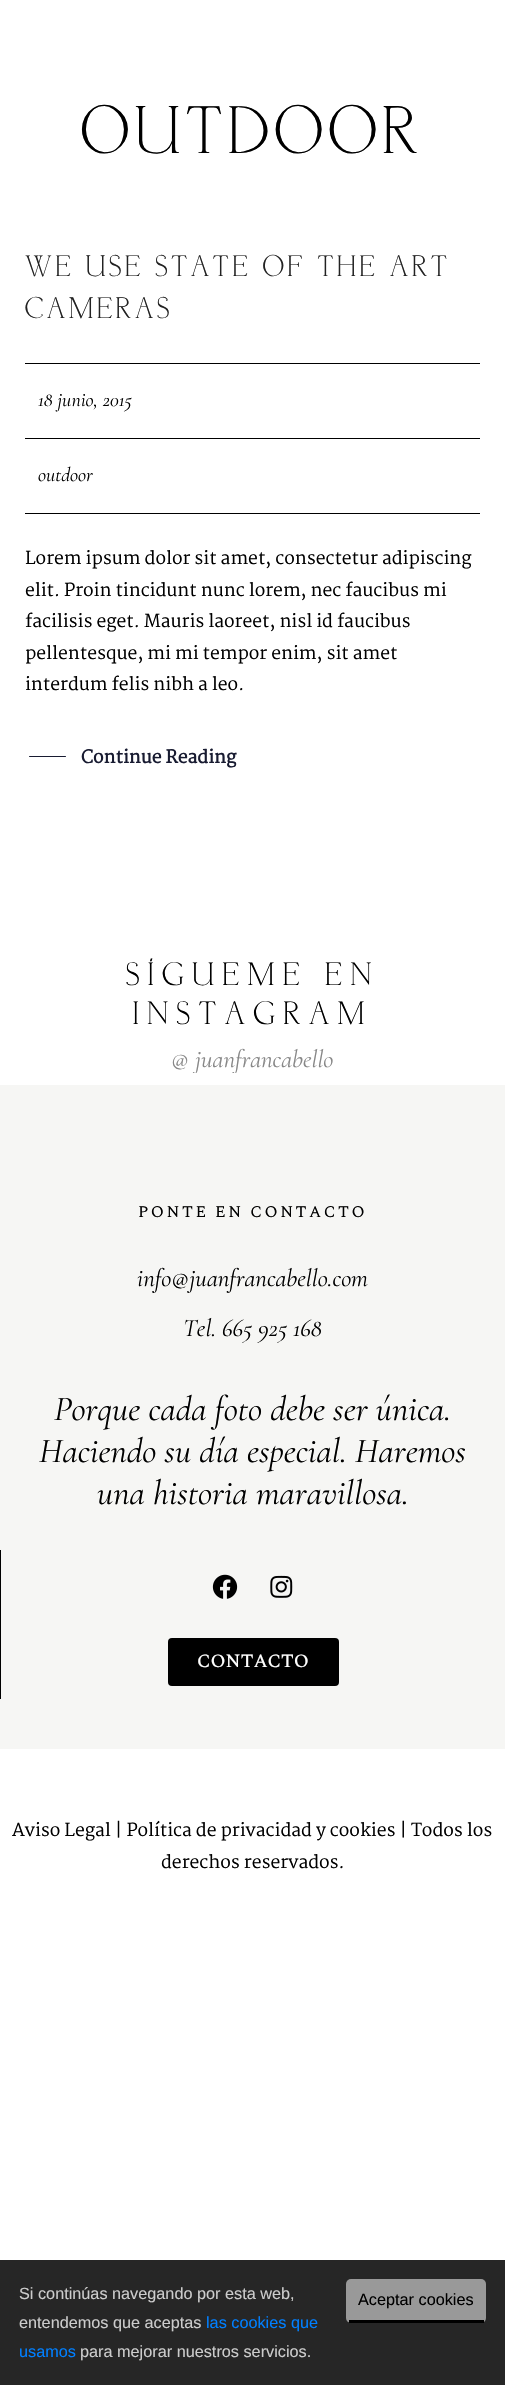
#include "include/core/SkBlurTypes.h"
#include "include/core/SkCanvas.h"
#include "include/core/SkData.h"
#include "include/core/SkFont.h"
#include "include/core/SkFontMgr.h"
#include "include/core/SkImage.h"
#include "include/core/SkMaskFilter.h"
#include "include/core/SkPaint.h"
#include "include/core/SkPathBuilder.h"
#include "include/core/SkTextBlob.h"
#include "include/effects/SkDashPathEffect.h"
#include "include/effects/SkGradientShader.h"
#include "include/utils/SkParsePath.h"

extern sk_sp<SkFontMgr> fontMgr;

void draw(SkCanvas* canvas) {
  SkPaint p;
  p.setAntiAlias(true);
  auto spacedText = [&](const char* s, float x, float y, const SkFont& font, const SkPaint& ink, float letter, float word) {
    std::vector<SkGlyphID> glyphs(font.countText(s, strlen(s), SkTextEncoding::kUTF8));
    std::vector<float> xs(glyphs.size());
    font.textToGlyphs(s, strlen(s), SkTextEncoding::kUTF8, glyphs);
    font.getXPos(glyphs, xs, x);
    float extra = 0;
    for (size_t i = 0; i < glyphs.size(); i++) {
      xs[i] += extra;
      extra += letter + word * (glyphs[i] == font.unicharToGlyph(' '));
    }
    canvas->drawTextBlob(SkTextBlob::MakeFromPosHGlyphs(glyphs, xs, y, font), 0, 0, ink);
  };
  canvas->clear(SK_ColorWHITE);
  p.setColor(SK_ColorBLACK);
  canvas->drawRect(SkRect::MakeLTRB(25, 363, 480, 364), p);
  canvas->drawRect(SkRect::MakeLTRB(25, 513, 480, 514), p);
  canvas->drawRect(SkRect::MakeLTRB(25, 438, 480, 439), p);
  p.setColor(SkColorSetRGB(24, 27, 49));
  canvas->drawRoundRect(SkRect::MakeLTRB(29, 756, 66, 757), 0.5f, 0.5f, p);
  p.setColor(SkColorSetRGB(246, 246, 244));
  canvas->drawRect(SkRect::MakeLTRB(0, 1085, 505, 1749), p);
  p.setColor(SK_ColorBLACK);
  canvas->drawRect(SkRect::MakeLTRB(0, 1550, 1, 1699), p);
  canvas->drawImageRect(SkImages::DeferredFromEncodedData(SkData::MakeFromFileName("images/1.png")), SkRect::MakeLTRB(212, 1574, 238, 1599), SkSamplingOptions());
  canvas->drawImageRect(SkImages::DeferredFromEncodedData(SkData::MakeFromFileName("images/2.png")), SkRect::MakeLTRB(270, 1575, 293, 1598), SkSamplingOptions());
  canvas->drawRoundRect(SkRect::MakeLTRB(168, 1638, 339, 1686), 4, 4, p);
  p.setColor(SkColorSetRGB(38, 38, 38));
  canvas->drawRect(SkRect::MakeLTRB(0, 2260, 505, 2385), p);
  p.setColor(SkColorSetRGB(153, 153, 153));
  canvas->drawRoundRect(SkRect::MakeLTRB(346, 2279, 486, 2323), 5, 5, p);
  p.setColor(SK_ColorBLACK);
  canvas->drawRect(SkRect::MakeLTRB(349, 2320, 484, 2323), p);
  SkFont font1(fontMgr->matchFamilyStyle("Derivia", SkFontStyle::Normal()), 62.5f);
  font1.setSubpixel(true);
  spacedText("OUTDOOR", 81, 153, font1, p, 6.25f, 0);
  SkFont font2(fontMgr->matchFamilyStyle("Derivia", SkFontStyle::Normal()), 27.5f);
  font2.setSubpixel(true);
  p.setColor(SkColorSetRGB(34, 34, 34));
  spacedText("WE USE STATE OF THE ART", 25, 276, font2, p, 3.75f, 0);
  spacedText("CAMERAS", 25, 318, font2, p, 3.75f, 0);
  SkFont font3(fontMgr->matchFamilyStyle("Cormorant Garamond", SkFontStyle::Italic()), 20);
  font3.setSubpixel(true);
  p.setColor(SK_ColorBLACK);
  canvas->drawString("18 junio, 2015", 38, 406, font3, p);
  canvas->drawString("outdoor", 38, 481, font3, p);
  SkFont font4(fontMgr->matchFamilyStyle("Martel", SkFontStyle::Normal()), 17.5f);
  font4.setSubpixel(true);
  canvas->drawString("Lorem ipsum dolor sit amet, consectetur adipiscing", 25, 564, font4, p);
  canvas->drawString("elit. Proin tincidunt nunc lorem, nec faucibus mi", 25, 596, font4, p);
  canvas->drawString("facilisis eget. Mauris laoreet, nisl id faucibus", 25, 627, font4, p);
  canvas->drawString("pellentesque, mi mi tempor enim, sit amet", 25, 659, font4, p);
  canvas->drawString("interdum felis nibh a leo.", 25, 690, font4, p);
  SkFont font5(fontMgr->matchFamilyStyle("Martel", SkFontStyle::Bold()), 17.5f);
  font5.setSubpixel(true);
  p.setColor(SkColorSetRGB(24, 27, 49));
  canvas->drawString("Continue Reading", 81, 763, font5, p);
  SkFont font6(fontMgr->matchFamilyStyle("Derivia", SkFontStyle::Normal()), 30);
  font6.setSubpixel(true);
  p.setColor(SK_ColorBLACK);
  spacedText("SÍGUEME EN", 126, 985, font6, p, 8.75f, 0);
  spacedText("INSTAGRAM", 133, 1024, font6, p, 8.75f, 0);
  SkFont font7(fontMgr->matchFamilyStyle("Cormorant Garamond", SkFontStyle::Italic()), 25);
  font7.setSubpixel(true);
  p.setColor(SkColorSetRGB(135, 135, 135));
  canvas->drawString("@", 171, 1067, font7, p);
  canvas->save();
  canvas->clipRect(SkRect::MakeLTRB(171, 1048, 334, 1073));
  canvas->drawString("juanfrancabello", 195, 1067, font7, p);
  canvas->restore();
  SkFont font8(fontMgr->matchFamilyStyle("Spectral", SkFontStyle::Normal()), 16.25f);
  font8.setSubpixel(true);
  p.setColor(SK_ColorBLACK);
  spacedText("PONTE EN CONTACTO", 138, 1217, font8, p, 2.5f, 0);
  canvas->drawString("info@juanfrancabello.com", 137, 1286, font7, p);
  canvas->drawString("Tel. 665 925 168", 183, 1336, font7, p);
  SkFont font9(fontMgr->matchFamilyStyle("Cormorant Garamond", SkFontStyle::Italic()), 35);
  font9.setSubpixel(true);
  canvas->drawString("Porque cada foto debe ser única.", 54, 1420, font9, p);
  canvas->drawString("Haciendo su día especial. Haremos", 39, 1462, font9, p);
  canvas->drawString("una historia maravillosa.", 97, 1504, font9, p);
  SkFont font10(fontMgr->matchFamilyStyle("Spectral", SkFontStyle(500, SkFontStyle::kNormal_Width, SkFontStyle::kUpright_Slant)), 18.75f);
  font10.setSubpixel(true);
  p.setColor(SK_ColorWHITE);
  canvas->drawString("CONTACTO", 197, 1667, font10, p);
  p.setColor(SK_ColorBLACK);
  canvas->drawString("Aviso Legal | Política de privacidad y cookies | Todos los", 12, 1836, font4, p);
  canvas->drawString("derechos reservados.", 161, 1868, font4, p);
  SkFont font11(fontMgr->matchFamilyStyle("Liberation Sans", SkFontStyle::Normal()), 16.25f);
  font11.setSubpixel(true);
  p.setColor(SkColorSetRGB(204, 204, 204));
  canvas->drawString("Si continúas navegando por esta web,", 19, 2299, font11, p);
  p.setColor(SK_ColorBLACK);
  canvas->drawString("Aceptar cookies", 358, 2305, font11, p);
  p.setColor(SkColorSetRGB(204, 204, 204));
  canvas->drawString("entendemos que aceptas", 19, 2328, font11, p);
  p.setColor(SkColorSetRGB(0, 127, 255));
  canvas->drawString("las cookies que", 206, 2328, font11, p);
  canvas->drawString("usamos", 19, 2357, font11, p);
  p.setColor(SkColorSetRGB(204, 204, 204));
  canvas->drawString("para mejorar nuestros servicios.", 80, 2357, font11, p);
}
